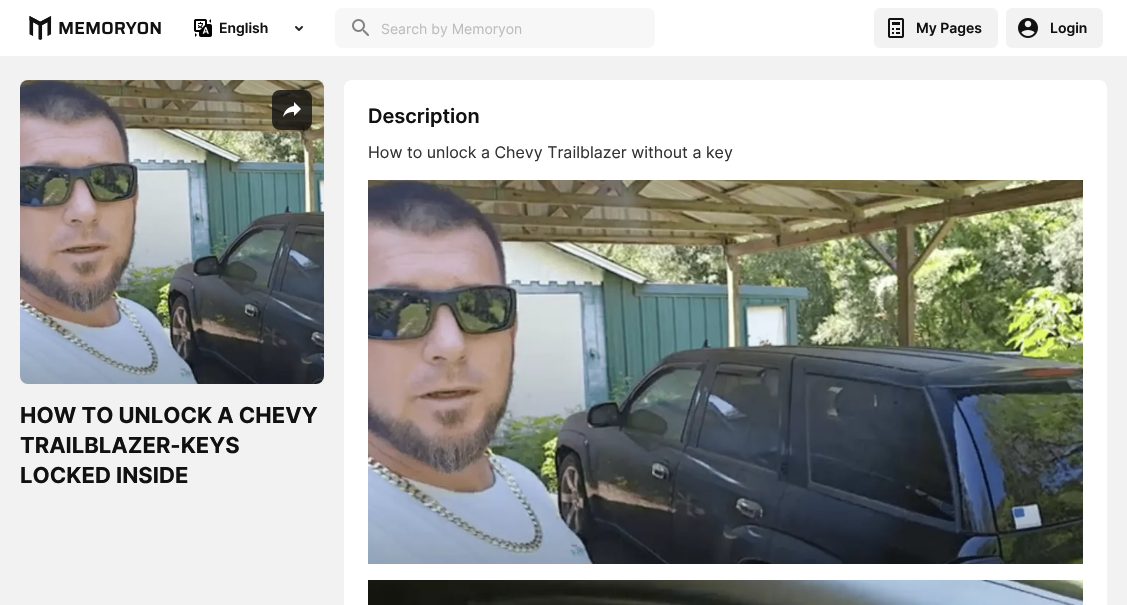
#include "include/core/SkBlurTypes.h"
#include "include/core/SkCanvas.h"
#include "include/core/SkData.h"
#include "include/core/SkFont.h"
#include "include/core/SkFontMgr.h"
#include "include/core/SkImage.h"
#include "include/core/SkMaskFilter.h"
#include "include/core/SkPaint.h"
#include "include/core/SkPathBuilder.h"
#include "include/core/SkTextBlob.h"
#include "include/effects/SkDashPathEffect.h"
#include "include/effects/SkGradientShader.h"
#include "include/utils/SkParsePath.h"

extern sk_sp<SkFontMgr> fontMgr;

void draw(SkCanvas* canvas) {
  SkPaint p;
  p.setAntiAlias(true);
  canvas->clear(SkColorSetRGB(242, 242, 242));
  p.setColor(SK_ColorWHITE);
  canvas->drawRect(SkRect::MakeLTRB(0, 0, 1127, 56), p);
  canvas->drawImageRect(SkImages::DeferredFromEncodedData(SkData::MakeFromFileName("images/1.png")), SkRect::MakeLTRB(29, 16, 161, 40), SkSamplingOptions());
  canvas->drawImageRect(SkImages::DeferredFromEncodedData(SkData::MakeFromFileName("images/2.png")), SkRect::MakeLTRB(194, 19, 212, 37), SkSamplingOptions());
  canvas->drawImageRect(SkImages::DeferredFromEncodedData(SkData::MakeFromFileName("images/3.png")), SkRect::MakeLTRB(295, 26, 303, 31), SkSamplingOptions());
  p.setColor(SkColorSetRGB(247, 247, 247));
  canvas->drawRoundRect(SkRect::MakeLTRB(335, 8, 655, 48), 8, 8, p);
  canvas->drawImageRect(SkImages::DeferredFromEncodedData(SkData::MakeFromFileName("images/4.png")), SkRect::MakeLTRB(352, 19, 369, 36), SkSamplingOptions());
  p.setColor(SkColorSetRGB(242, 242, 242));
  canvas->drawRoundRect(SkRect::MakeLTRB(874, 8, 998, 48), 6, 6, p);
  canvas->drawImageRect(SkImages::DeferredFromEncodedData(SkData::MakeFromFileName("images/5.png")), SkRect::MakeLTRB(888, 18, 904, 38), SkSamplingOptions());
  canvas->drawRoundRect(SkRect::MakeLTRB(1006, 8, 1103, 48), 6, 6, p);
  canvas->drawImageRect(SkImages::DeferredFromEncodedData(SkData::MakeFromFileName("images/6.png")), SkRect::MakeLTRB(1018, 18, 1038, 38), SkSamplingOptions());
  p.setColor(SK_ColorWHITE);
  canvas->drawRoundRect(SkRect::MakeLTRB(344, 80, 1107, 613), 8, 8, p);
  canvas->drawImageRect(SkImages::DeferredFromEncodedData(SkData::MakeFromFileName("images/7.png")), SkRect::MakeLTRB(368, 180, 1083, 564), SkSamplingOptions());
  canvas->drawImageRect(SkImages::DeferredFromEncodedData(SkData::MakeFromFileName("images/8.png")), SkRect::MakeLTRB(368, 580, 1083, 605), SkSamplingOptions());
  canvas->drawImageRect(SkImages::DeferredFromEncodedData(SkData::MakeFromFileName("images/9.png")), SkRect::MakeLTRB(20, 80, 324, 384), SkSamplingOptions());
  p.setColor(SkColorSetARGB(204, 17, 17, 17));
  canvas->drawRoundRect(SkRect::MakeLTRB(272, 90, 312, 130), 8, 8, p);
  canvas->drawImageRect(SkImages::DeferredFromEncodedData(SkData::MakeFromFileName("images/10.png")), SkRect::MakeLTRB(283, 102, 301, 117), SkSamplingOptions());
  SkFont font1(fontMgr->matchFamilyStyle("Inter", SkFontStyle(600, SkFontStyle::kNormal_Width, SkFontStyle::kUpright_Slant)), 14);
  font1.setSubpixel(true);
  p.setColor(SkColorSetRGB(17, 17, 17));
  canvas->drawString("English", 219, 33, font1, p);
  SkFont font2(fontMgr->matchFamilyStyle("Inter", SkFontStyle::Normal()), 14);
  font2.setSubpixel(true);
  p.setColor(SkColorSetRGB(189, 189, 189));
  canvas->drawString("Search by Memoryon", 381, 34, font2, p);
  p.setColor(SkColorSetRGB(17, 17, 17));
  canvas->drawString("My Pages", 916, 33, font1, p);
  canvas->drawString("Login", 1050, 33, font1, p);
  SkFont font3(fontMgr->matchFamilyStyle("Inter", SkFontStyle(600, SkFontStyle::kNormal_Width, SkFontStyle::kUpright_Slant)), 20);
  font3.setSubpixel(true);
  canvas->drawString("Description", 368, 123, font3, p);
  SkFont font4(fontMgr->matchFamilyStyle("Inter", SkFontStyle::Normal()), 16);
  font4.setSubpixel(true);
  p.setColor(SkColorSetRGB(51, 51, 51));
  canvas->drawString("How to unlock a Chevy Trailblazer without a key", 368, 158, font4, p);
  SkFont font5(fontMgr->matchFamilyStyle("Inter", SkFontStyle::Bold()), 22);
  font5.setSubpixel(true);
  p.setColor(SkColorSetRGB(17, 17, 17));
  canvas->drawString("HOW TO UNLOCK A CHEVY", 20, 423, font5, p);
  canvas->drawString("TRAILBLAZER-KEYS", 20, 453, font5, p);
  canvas->drawString("LOCKED INSIDE", 20, 483, font5, p);
}
